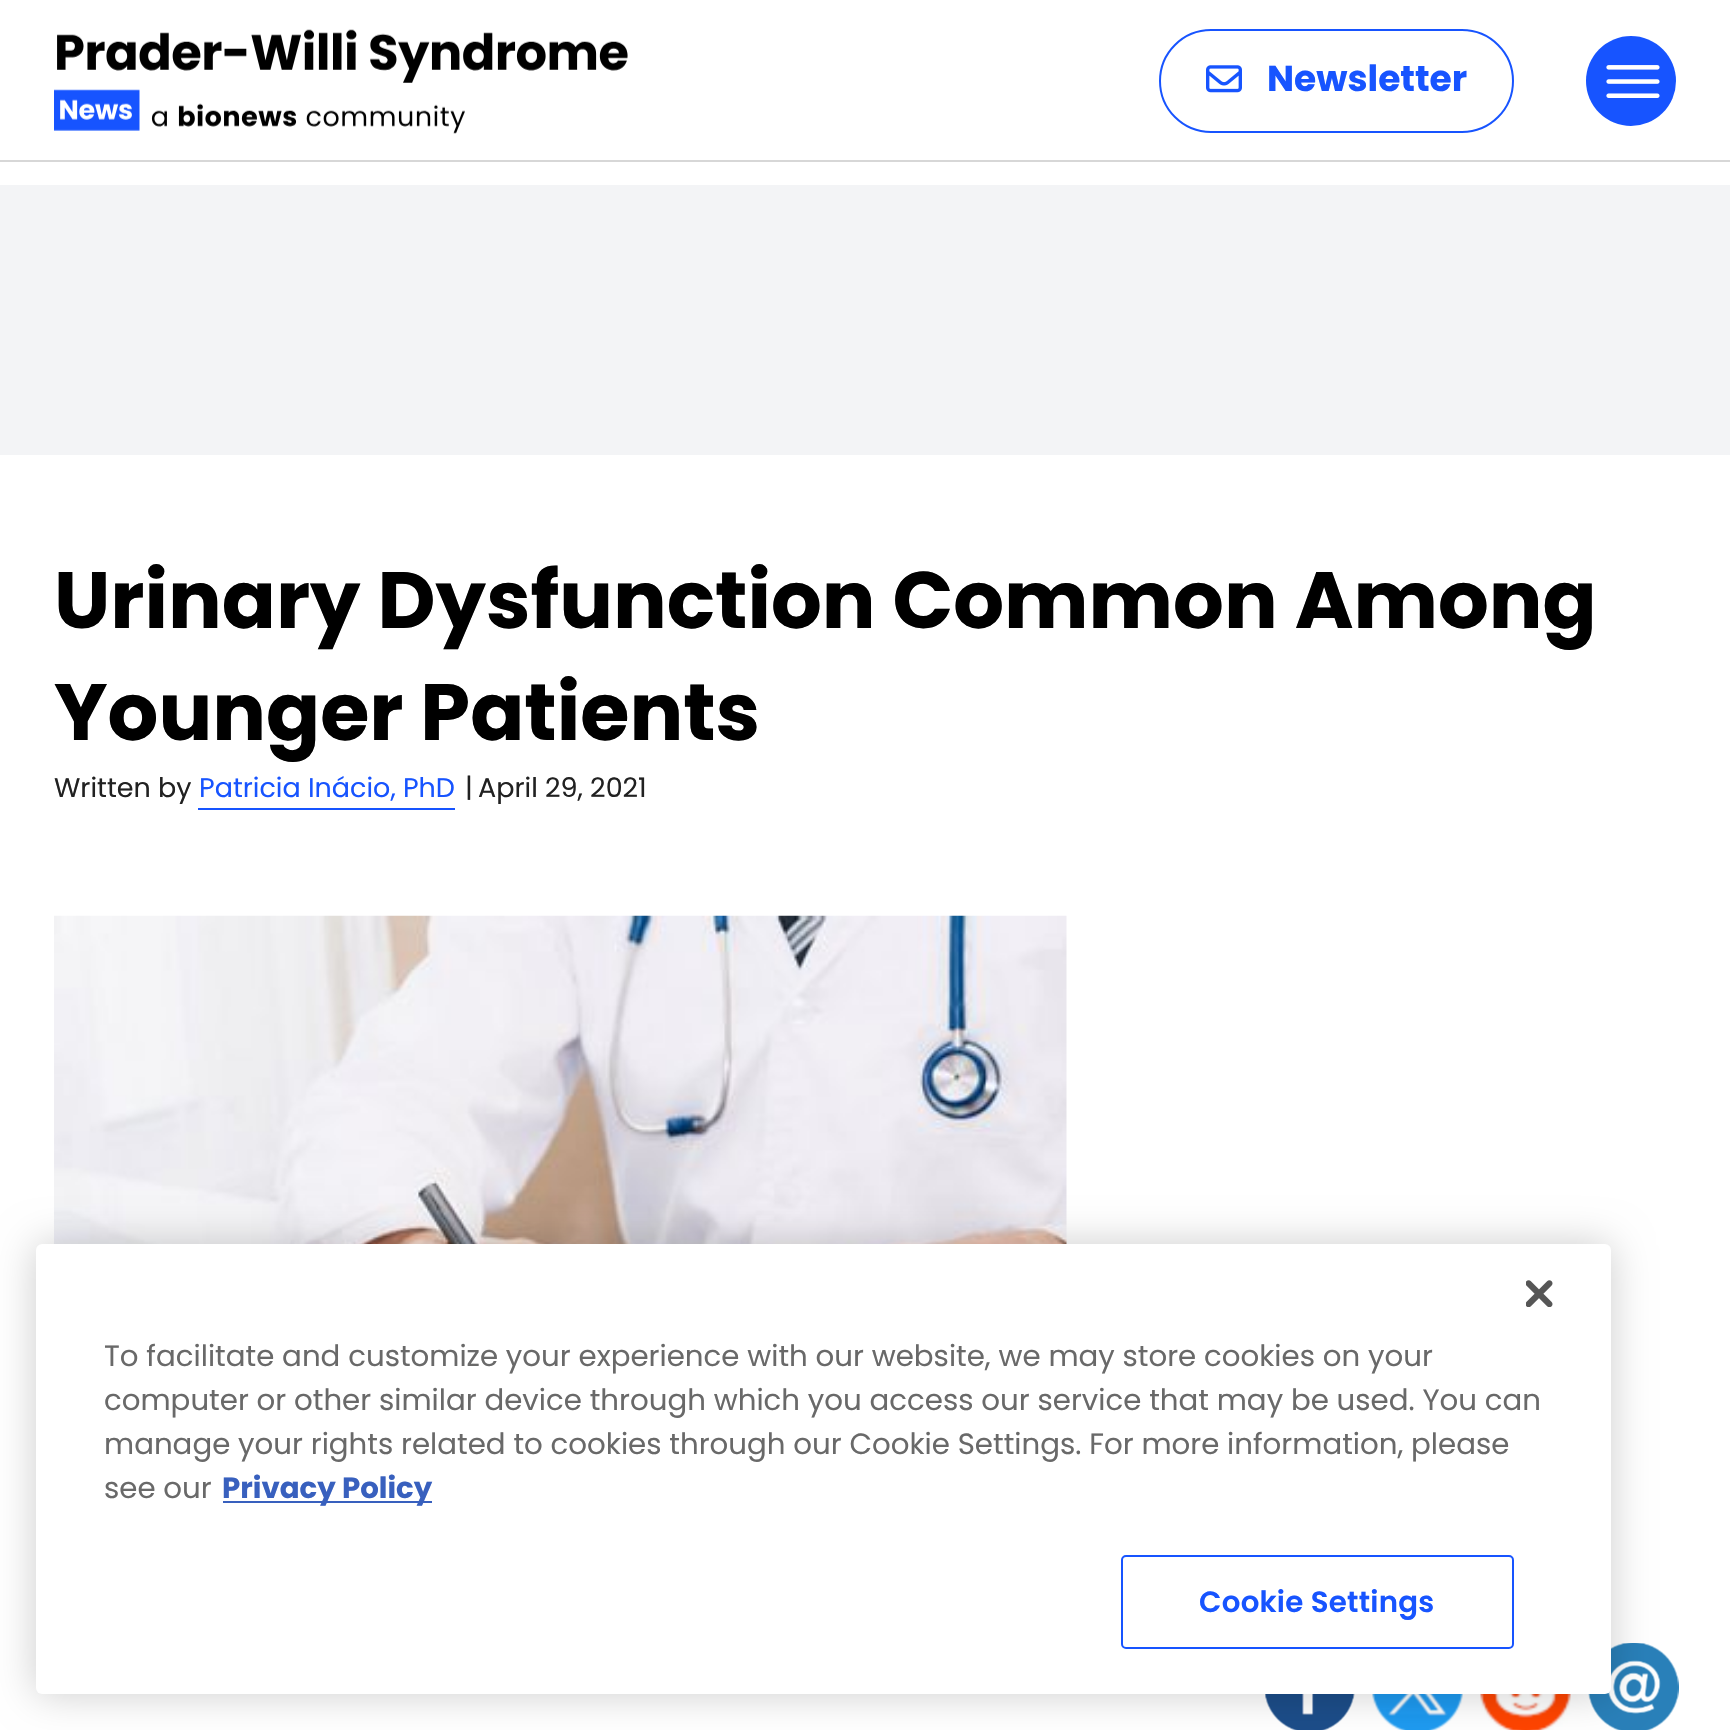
#include "include/core/SkBlurTypes.h"
#include "include/core/SkCanvas.h"
#include "include/core/SkData.h"
#include "include/core/SkFont.h"
#include "include/core/SkFontMgr.h"
#include "include/core/SkImage.h"
#include "include/core/SkMaskFilter.h"
#include "include/core/SkPaint.h"
#include "include/core/SkPathBuilder.h"
#include "include/core/SkTextBlob.h"
#include "include/effects/SkDashPathEffect.h"
#include "include/effects/SkGradientShader.h"
#include "include/utils/SkParsePath.h"

extern sk_sp<SkFontMgr> fontMgr;

void draw(SkCanvas* canvas) {
  SkPaint p;
  p.setAntiAlias(true);
  auto spacedText = [&](const char* s, float x, float y, const SkFont& font, const SkPaint& ink, float letter, float word) {
    std::vector<SkGlyphID> glyphs(font.countText(s, strlen(s), SkTextEncoding::kUTF8));
    std::vector<float> xs(glyphs.size());
    font.textToGlyphs(s, strlen(s), SkTextEncoding::kUTF8, glyphs);
    font.getXPos(glyphs, xs, x);
    float extra = 0;
    for (size_t i = 0; i < glyphs.size(); i++) {
      xs[i] += extra;
      extra += letter + word * (glyphs[i] == font.unicharToGlyph(' '));
    }
    canvas->drawTextBlob(SkTextBlob::MakeFromPosHGlyphs(glyphs, xs, y, font), 0, 0, ink);
  };
  canvas->clear(SK_ColorWHITE);
  p.setColor(SkColorSetRGB(215, 215, 215));
  canvas->drawRect(SkRect::MakeLTRB(0, 160, 1730, 162), p);
  canvas->drawImageRect(SkImages::DeferredFromEncodedData(SkData::MakeFromFileName("images/1.png")), SkRect::MakeLTRB(54, 29, 628, 134), SkSamplingOptions());
  p.setStyle(SkPaint::kStroke_Style);
  p.setStrokeWidth(2);
  p.setColor(SkColorSetRGB(23, 84, 255));
  canvas->drawRoundRect(SkRect::MakeLTRB(1160, 30, 1513, 132), 51, 51, p);
  canvas->drawImageRect(SkImages::DeferredFromEncodedData(SkData::MakeFromFileName("images/2.png")), SkRect::MakeLTRB(1206, 65, 1242, 93), SkSamplingOptions());
  p.setStyle(SkPaint::kFill_Style);
  canvas->drawCircle(1631, 81, 45, p);
  canvas->drawImageRect(SkImages::DeferredFromEncodedData(SkData::MakeFromFileName("images/3.png")), SkRect::MakeLTRB(1606, 65, 1660, 98), SkSamplingOptions());
  p.setColor(SkColorSetRGB(243, 244, 246));
  canvas->drawRect(SkRect::MakeLTRB(0, 185, 1730, 455), p);
  p.setColor(SkColorSetRGB(23, 84, 255));
  canvas->drawRect(SkRect::MakeLTRB(198, 808, 455, 810), p);
  canvas->drawImageRect(SkImages::DeferredFromEncodedData(SkData::MakeFromFileName("images/4.png")), SkRect::MakeLTRB(54, 915, 1067, 1244), SkSamplingOptions());
  canvas->drawImageRect(SkImages::DeferredFromEncodedData(SkData::MakeFromFileName("images/5.png")), SkRect::MakeLTRB(1265, 1694, 1355, 1730), SkSamplingOptions());
  canvas->drawImageRect(SkImages::DeferredFromEncodedData(SkData::MakeFromFileName("images/6.png")), SkRect::MakeLTRB(1372, 1694, 1463, 1730), SkSamplingOptions());
  canvas->drawImageRect(SkImages::DeferredFromEncodedData(SkData::MakeFromFileName("images/7.png")), SkRect::MakeLTRB(1480, 1694, 1571, 1730), SkSamplingOptions());
  canvas->drawImageRect(SkImages::DeferredFromEncodedData(SkData::MakeFromFileName("images/8.png")), SkRect::MakeLTRB(1588, 1643, 1679, 1730), SkSamplingOptions());
  p.setColor(SkColorSetARGB(51, 0, 0, 0));
  p.setMaskFilter(SkMaskFilter::MakeBlur(kNormal_SkBlurStyle, 20));
  canvas->drawRoundRect(SkRect::MakeLTRB(36, 1244, 1611, 1694), 6, 6, p);
  p.setMaskFilter(nullptr);
  p.setColor(SK_ColorWHITE);
  canvas->drawRoundRect(SkRect::MakeLTRB(36, 1244, 1611, 1694), 6, 6, p);
  canvas->drawImageRect(SkImages::DeferredFromEncodedData(SkData::MakeFromFileName("images/9.png")), SkRect::MakeLTRB(1526, 1280, 1553, 1307), SkSamplingOptions());
  p.setColor(SkColorSetRGB(56, 96, 190));
  canvas->drawRect(SkRect::MakeLTRB(223, 1501, 432, 1503), p);
  p.setStyle(SkPaint::kStroke_Style);
  p.setColor(SkColorSetRGB(23, 84, 255));
  canvas->drawRoundRect(SkRect::MakeLTRB(1122, 1556, 1513, 1648), 4, 4, p);
  SkFont font1(fontMgr->matchFamilyStyle("Poppins", SkFontStyle::Bold()), 36);
  font1.setSubpixel(true);
  p.setStyle(SkPaint::kFill_Style);
  canvas->drawString("Newsletter", 1267, 91, font1, p);
  SkFont font2(fontMgr->matchFamilyStyle("Poppins", SkFontStyle::Bold()), 79.8f);
  font2.setSubpixel(true);
  p.setColor(SK_ColorBLACK);
  canvas->drawString("Urinary Dysfunction Common Among", 54, 628, font2, p);
  canvas->drawString("Younger Patients", 54, 740, font2, p);
  SkFont font3(fontMgr->matchFamilyStyle("Poppins", SkFontStyle::Normal()), 27);
  font3.setSubpixel(true);
  p.setColor(SkColorSetRGB(33, 33, 33));
  canvas->drawString("Written by", 54, 797, font3, p);
  p.setColor(SkColorSetRGB(23, 84, 255));
  canvas->drawString("Patricia Inácio, PhD", 199, 797, font3, p);
  p.setColor(SkColorSetRGB(33, 33, 33));
  spacedText("|", 465, 797, font3, p, -4, 0);
  canvas->drawString("April 29, 2021", 478, 797, font3, p);
  SkFont font4(fontMgr->matchFamilyStyle("Poppins", SkFontStyle::Normal()), 29.25f);
  font4.setSubpixel(true);
  p.setColor(SkColorSetRGB(105, 105, 105));
  canvas->drawString("To facilitate and customize your experience with our website, we may store cookies on your", 104, 1366, font4, p);
  canvas->drawString("computer or other similar device through which you access our service that may be used. You can", 104, 1410, font4, p);
  canvas->drawString("manage your rights related to cookies through our Cookie Settings. For more information, please", 104, 1454, font4, p);
  canvas->drawString("see our", 104, 1498, font4, p);
  SkFont font5(fontMgr->matchFamilyStyle("Poppins", SkFontStyle::Bold()), 29.25f);
  font5.setSubpixel(true);
  p.setColor(SkColorSetRGB(56, 96, 190));
  canvas->drawString("Privacy Policy", 222, 1498, font5, p);
  SkFont font6(fontMgr->matchFamilyStyle("Poppins", SkFontStyle(600, SkFontStyle::kNormal_Width, SkFontStyle::kUpright_Slant)), 29.25f);
  font6.setSubpixel(true);
  p.setColor(SkColorSetRGB(23, 84, 255));
  spacedText("Cookie Settings", 1199, 1612, font6, p, 0.25f, 0);
}
